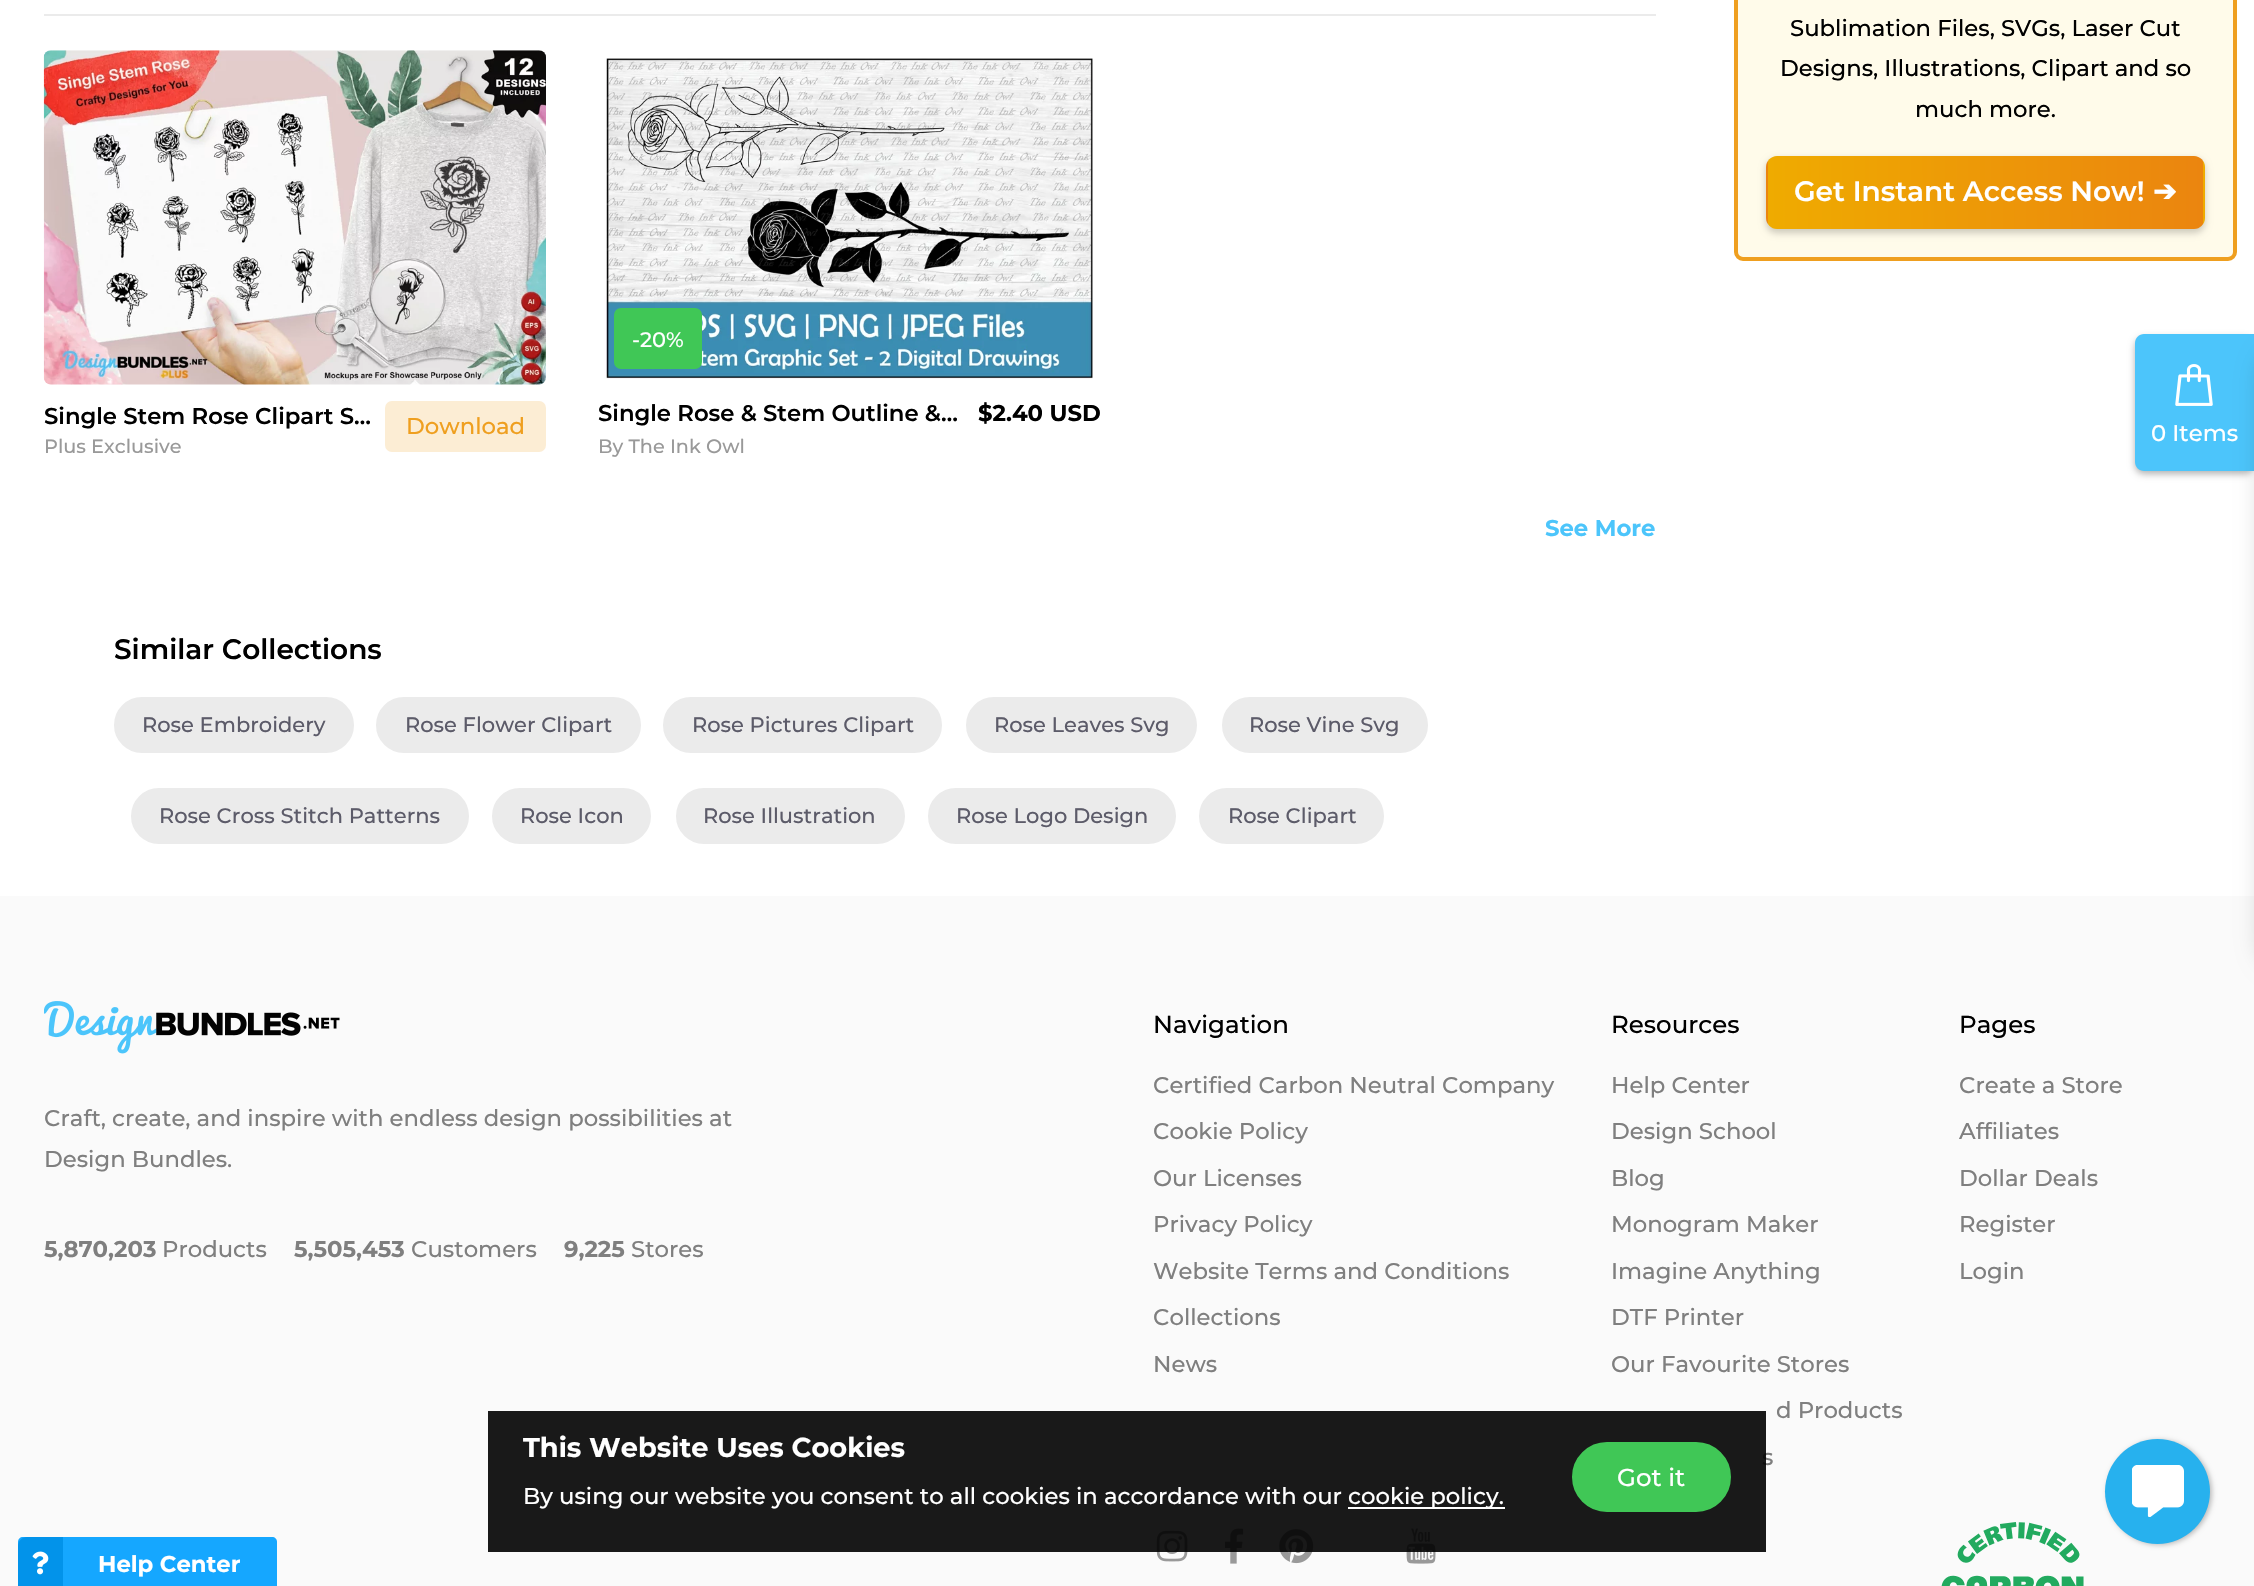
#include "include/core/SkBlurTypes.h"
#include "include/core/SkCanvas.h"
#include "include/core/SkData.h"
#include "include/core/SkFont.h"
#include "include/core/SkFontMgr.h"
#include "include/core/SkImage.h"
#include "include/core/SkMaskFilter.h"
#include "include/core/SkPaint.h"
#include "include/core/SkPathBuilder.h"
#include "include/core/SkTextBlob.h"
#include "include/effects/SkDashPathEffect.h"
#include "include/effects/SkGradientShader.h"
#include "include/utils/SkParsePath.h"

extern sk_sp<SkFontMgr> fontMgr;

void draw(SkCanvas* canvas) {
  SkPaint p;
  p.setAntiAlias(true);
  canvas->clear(SK_ColorWHITE);
  p.setColor(SkColorSetRGB(255, 251, 234));
  canvas->drawRoundRect(SkRect::MakeLTRB(1736, -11, 2235, 259), 7, 7, p);
  p.setStyle(SkPaint::kStroke_Style);
  p.setStrokeWidth(4);
  p.setColor(SkColorSetRGB(239, 159, 31));
  canvas->drawRoundRect(SkRect::MakeLTRB(1736, -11, 2235, 259), 7, 7, p);
  p.setStyle(SkPaint::kFill_Style);
  p.setColor(SkColorSetARGB(51, 0, 0, 0));
  p.setMaskFilter(SkMaskFilter::MakeBlur(kNormal_SkBlurStyle, 3.5f));
  canvas->drawRoundRect(SkRect::MakeLTRB(1766, 159, 2205, 233), 11, 11, p);
  p.setMaskFilter(nullptr);
  canvas->save();
  canvas->clipPath(SkPathBuilder().moveTo(1777, 156).lineTo(2194, 156).cubicTo(2200, 156, 2205, 161, 2205, 167).lineTo(2205, 218).cubicTo(2205, 224, 2200, 229, 2194, 229).lineTo(1777, 229).cubicTo(1771, 229, 1766, 224, 1766, 218).lineTo(1766, 167).cubicTo(1766, 161, 1771, 156, 1777, 156).close().detach(), true);
  {
    const SkColor colors[] = {SkColorSetRGB(239, 171, 0), SkColorSetRGB(235, 133, 15)};
    const float stops[] = {0, 1};
    const SkPoint ends[] = {{1332, 193}, {1768, 192}};
    p.setShader(SkGradientShader::MakeLinear(ends, colors, stops, 2, SkTileMode::kClamp));
    p.setAlpha(255);
  }
  canvas->drawRect(SkRect::MakeLTRB(1766, 156, 1768, 229), p);
  {
    const SkColor colors[] = {SkColorSetRGB(239, 171, 0), SkColorSetRGB(235, 133, 15)};
    const float stops[] = {0, 1};
    const SkPoint ends[] = {{1768, 193}, {2203, 192}};
    p.setShader(SkGradientShader::MakeLinear(ends, colors, stops, 2, SkTileMode::kClamp));
    p.setAlpha(255);
  }
  canvas->drawRect(SkRect::MakeLTRB(1768, 156, 2203, 229), p);
  {
    const SkColor colors[] = {SkColorSetRGB(239, 171, 0), SkColorSetRGB(235, 133, 15)};
    const float stops[] = {0, 1};
    const SkPoint ends[] = {{2203, 193}, {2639, 192}};
    p.setShader(SkGradientShader::MakeLinear(ends, colors, stops, 2, SkTileMode::kClamp));
    p.setAlpha(255);
  }
  canvas->drawRect(SkRect::MakeLTRB(2203, 156, 2205, 229), p);
  canvas->restore();
  p.setShader(nullptr);
  p.setColor(SkColorSetRGB(235, 235, 235));
  canvas->drawRect(SkRect::MakeLTRB(44, 14, 1656, 16), p);
  canvas->drawImageRect(SkImages::DeferredFromEncodedData(SkData::MakeFromFileName("images/1.png")), SkRect::MakeLTRB(43, 50, 546, 385), SkSamplingOptions());
  p.setColor(SkColorSetRGB(252, 237, 212));
  canvas->drawRoundRect(SkRect::MakeLTRB(385, 401, 546, 452), 7, 7, p);
  canvas->drawImageRect(SkImages::DeferredFromEncodedData(SkData::MakeFromFileName("images/2.png")), SkRect::MakeLTRB(604, 58, 1093, 379), SkSamplingOptions());
  p.setColor(SkColorSetRGB(64, 199, 86));
  canvas->drawRoundRect(SkRect::MakeLTRB(614, 308, 702, 369), 7, 7, p);
  p.setColor(SkColorSetRGB(235, 235, 235));
  canvas->drawRoundRect(SkRect::MakeLTRB(115, 698, 353, 752), 27, 27, p);
  p.setStyle(SkPaint::kStroke_Style);
  p.setStrokeWidth(2);
  canvas->drawRoundRect(SkRect::MakeLTRB(115, 698, 353, 752), 27, 27, p);
  p.setStyle(SkPaint::kFill_Style);
  canvas->drawRoundRect(SkRect::MakeLTRB(377, 698, 640, 752), 27, 27, p);
  p.setStyle(SkPaint::kStroke_Style);
  canvas->drawRoundRect(SkRect::MakeLTRB(377, 698, 640, 752), 27, 27, p);
  p.setStyle(SkPaint::kFill_Style);
  canvas->drawRoundRect(SkRect::MakeLTRB(664, 698, 941, 752), 27, 27, p);
  p.setStyle(SkPaint::kStroke_Style);
  canvas->drawRoundRect(SkRect::MakeLTRB(664, 698, 941, 752), 27, 27, p);
  p.setStyle(SkPaint::kFill_Style);
  canvas->drawRoundRect(SkRect::MakeLTRB(967, 698, 1196, 752), 27, 27, p);
  p.setStyle(SkPaint::kStroke_Style);
  canvas->drawRoundRect(SkRect::MakeLTRB(967, 698, 1196, 752), 27, 27, p);
  p.setStyle(SkPaint::kFill_Style);
  canvas->drawRoundRect(SkRect::MakeLTRB(1223, 698, 1427, 752), 27, 27, p);
  p.setStyle(SkPaint::kStroke_Style);
  canvas->drawRoundRect(SkRect::MakeLTRB(1223, 698, 1427, 752), 27, 27, p);
  p.setStyle(SkPaint::kFill_Style);
  canvas->drawRoundRect(SkRect::MakeLTRB(132, 789, 468, 843), 27, 27, p);
  p.setStyle(SkPaint::kStroke_Style);
  canvas->drawRoundRect(SkRect::MakeLTRB(132, 789, 468, 843), 27, 27, p);
  p.setStyle(SkPaint::kFill_Style);
  canvas->drawRoundRect(SkRect::MakeLTRB(493, 789, 650, 843), 27, 27, p);
  p.setStyle(SkPaint::kStroke_Style);
  canvas->drawRoundRect(SkRect::MakeLTRB(493, 789, 650, 843), 27, 27, p);
  p.setStyle(SkPaint::kFill_Style);
  canvas->drawRoundRect(SkRect::MakeLTRB(677, 789, 904, 843), 27, 27, p);
  p.setStyle(SkPaint::kStroke_Style);
  canvas->drawRoundRect(SkRect::MakeLTRB(677, 789, 904, 843), 27, 27, p);
  p.setStyle(SkPaint::kFill_Style);
  canvas->drawRoundRect(SkRect::MakeLTRB(929, 789, 1175, 843), 27, 27, p);
  p.setStyle(SkPaint::kStroke_Style);
  canvas->drawRoundRect(SkRect::MakeLTRB(929, 789, 1175, 843), 27, 27, p);
  p.setStyle(SkPaint::kFill_Style);
  canvas->drawRoundRect(SkRect::MakeLTRB(1200, 789, 1383, 843), 27, 27, p);
  p.setStyle(SkPaint::kStroke_Style);
  canvas->drawRoundRect(SkRect::MakeLTRB(1200, 789, 1383, 843), 27, 27, p);
  p.setStyle(SkPaint::kFill_Style);
  p.setColor(SkColorSetARGB(77, 0, 0, 0));
  p.setMaskFilter(SkMaskFilter::MakeBlur(kNormal_SkBlurStyle, 3.5f));
  canvas->drawRoundRect(SkRect::MakeLTRB(2135, 338, 2254, 474), 9, 9, p);
  p.setMaskFilter(nullptr);
  p.setColor(SkColorSetRGB(76, 197, 251));
  canvas->drawPath(SkPathBuilder().moveTo(2144, 334).lineTo(2254, 334).lineTo(2254, 471).lineTo(2144, 471).cubicTo(2139, 471, 2135, 467, 2135, 462).lineTo(2135, 343).cubicTo(2135, 338, 2139, 334, 2144, 334).close().detach(), p);
  canvas->drawImageRect(SkImages::DeferredFromEncodedData(SkData::MakeFromFileName("images/3.png")), SkRect::MakeLTRB(2175, 364, 2213, 406), SkSamplingOptions());
  p.setColor(SkColorSetRGB(250, 250, 250));
  canvas->drawRect(SkRect::MakeLTRB(0, 896, 2254, 1586), p);
  p.setColor(SkColorSetARGB(26, 0, 0, 0));
  p.setMaskFilter(SkMaskFilter::MakeBlur(kNormal_SkBlurStyle, 9));
  canvas->drawRoundRect(SkRect::MakeLTRB(2254, 340, 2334, 977), 53, 53, p);
  p.setMaskFilter(nullptr);
  canvas->drawImageRect(SkImages::DeferredFromEncodedData(SkData::MakeFromFileName("images/4.png")), SkRect::MakeLTRB(44, 1001, 340, 1054), SkSamplingOptions());
  canvas->drawImageRect(SkImages::DeferredFromEncodedData(SkData::MakeFromFileName("images/5.png")), SkRect::MakeLTRB(1156, 1530, 1188, 1562), SkSamplingOptions());
  canvas->drawImageRect(SkImages::DeferredFromEncodedData(SkData::MakeFromFileName("images/6.png")), SkRect::MakeLTRB(1225, 1528, 1244, 1564), SkSamplingOptions());
  canvas->drawImageRect(SkImages::DeferredFromEncodedData(SkData::MakeFromFileName("images/7.png")), SkRect::MakeLTRB(1279, 1529, 1314, 1564), SkSamplingOptions());
  canvas->drawImageRect(SkImages::DeferredFromEncodedData(SkData::MakeFromFileName("images/8.png")), SkRect::MakeLTRB(1406, 1528, 1436, 1564), SkSamplingOptions());
  canvas->drawImageRect(SkImages::DeferredFromEncodedData(SkData::MakeFromFileName("images/9.png")), SkRect::MakeLTRB(1941, 1522, 2084, 1586), SkSamplingOptions());
  p.setColor(SkColorSetARGB(66, 0, 0, 0));
  p.setMaskFilter(SkMaskFilter::MakeBlur(kNormal_SkBlurStyle, 2.5f));
  canvas->drawRoundRect(SkRect::MakeLTRB(2107, 1440, 2212, 1545), 52.5f, 52.5f, p);
  p.setMaskFilter(nullptr);
  p.setColor(SkColorSetRGB(39, 177, 238));
  canvas->drawCircle(2157.5f, 1491.5f, 52.5f, p);
  canvas->drawImageRect(SkImages::DeferredFromEncodedData(SkData::MakeFromFileName("images/10.png")), SkRect::MakeLTRB(2132, 1465, 2184, 1517), SkSamplingOptions());
  p.setColor(SkColorSetRGB(21, 167, 255));
  canvas->drawPath(SkPathBuilder().moveTo(23, 1537).lineTo(272, 1537).cubicTo(275, 1537, 277, 1539, 277, 1542).lineTo(277, 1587).lineTo(18, 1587).lineTo(18, 1542).cubicTo(18, 1539, 20, 1537, 23, 1537).close().detach(), p);
  p.setColor(SkColorSetRGB(2, 147, 234));
  canvas->drawPath(SkPathBuilder().moveTo(27, 1537).lineTo(63, 1537).lineTo(63, 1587).lineTo(18, 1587).lineTo(18, 1546).cubicTo(18, 1541, 22, 1537, 27, 1537).close().detach(), p);
  canvas->drawImageRect(SkImages::DeferredFromEncodedData(SkData::MakeFromFileName("images/11.png")), SkRect::MakeLTRB(32, 1551, 49, 1575), SkSamplingOptions());
  SkFont font1(fontMgr->matchFamilyStyle("Montserrat", SkFontStyle(500, SkFontStyle::kNormal_Width, SkFontStyle::kUpright_Slant)), 22.75f);
  font1.setSubpixel(true);
  p.setColor(SK_ColorBLACK);
  canvas->drawString("Sublimation Files, SVGs, Laser Cut", 1790, 36, font1, p);
  canvas->drawString("Designs, Illustrations, Clipart and so", 1780, 76, font1, p);
  canvas->drawString("much more.", 1915, 117, font1, p);
  SkFont font2(fontMgr->matchFamilyStyle("Montserrat", SkFontStyle(600, SkFontStyle::kNormal_Width, SkFontStyle::kUpright_Slant)), 28);
  font2.setSubpixel(true);
  p.setColor(SK_ColorWHITE);
  canvas->drawString("Get Instant Access Now!", 1794, 201, font2, p);
  SkFont font3(fontMgr->matchFamilyStyle("DejaVu Sans", SkFontStyle::Bold()), 28);
  font3.setSubpixel(true);
  canvas->drawString("➔", 2153, 201, font3, p);
  SkFont font4(fontMgr->matchFamilyStyle("Montserrat", SkFontStyle(600, SkFontStyle::kNormal_Width, SkFontStyle::kUpright_Slant)), 22.75f);
  font4.setSubpixel(true);
  p.setColor(SK_ColorBLACK);
  canvas->drawString("Single Stem Rose Clipart S…", 44, 424, font4, p);
  p.setColor(SkColorSetRGB(239, 159, 31));
  canvas->drawString("Download", 406, 434, font1, p);
  SkFont font5(fontMgr->matchFamilyStyle("Montserrat", SkFontStyle(500, SkFontStyle::kNormal_Width, SkFontStyle::kUpright_Slant)), 19.25f);
  font5.setSubpixel(true);
  p.setColor(SkColorSetRGB(153, 153, 153));
  canvas->drawString("Plus Exclusive", 44, 453, font5, p);
  SkFont font6(fontMgr->matchFamilyStyle("Montserrat", SkFontStyle(500, SkFontStyle::kNormal_Width, SkFontStyle::kUpright_Slant)), 21);
  font6.setSubpixel(true);
  p.setColor(SK_ColorWHITE);
  canvas->drawString("-20%", 632, 347, font6, p);
  p.setColor(SK_ColorBLACK);
  canvas->drawString("Single Rose & Stem Outline &…", 598, 421, font4, p);
  SkFont font7(fontMgr->matchFamilyStyle("Montserrat", SkFontStyle::Bold()), 22.75f);
  font7.setSubpixel(true);
  canvas->drawString("$2.40 USD", 978, 421, font7, p);
  p.setColor(SkColorSetRGB(153, 153, 153));
  canvas->drawString("By The Ink Owl", 598, 453, font5, p);
  p.setColor(SkColorSetRGB(76, 197, 251));
  canvas->drawString("See More", 1545, 536, font7, p);
  p.setColor(SK_ColorBLACK);
  canvas->drawString("Similar Collections", 114, 659, font2, p);
  p.setColor(SkColorSetRGB(92, 91, 105));
  canvas->drawString("Rose Embroidery", 142, 732, font6, p);
  canvas->drawString("Rose Flower Clipart", 405, 732, font6, p);
  canvas->drawString("Rose Pictures Clipart", 692, 732, font6, p);
  canvas->drawString("Rose Leaves Svg", 994, 732, font6, p);
  canvas->drawString("Rose Vine Svg", 1249, 732, font6, p);
  canvas->drawString("Rose Cross Stitch Patterns", 159, 823, font6, p);
  canvas->drawString("Rose Icon", 520, 823, font6, p);
  canvas->drawString("Rose Illustration", 703, 823, font6, p);
  canvas->drawString("Rose Logo Design", 956, 823, font6, p);
  canvas->drawString("Rose Clipart", 1228, 823, font6, p);
  p.setColor(SK_ColorWHITE);
  canvas->drawString("0 Items", 2151, 441, font1, p);
  p.setColor(SkColorSetRGB(127, 127, 127));
  canvas->drawString("Craft, create, and inspire with endless design possibilities at", 44, 1126, font1, p);
  canvas->drawString("Design Bundles.", 44, 1167, font1, p);
  canvas->drawString("5,870,203", 44, 1257, font7, p);
  canvas->drawString("Products", 162, 1257, font1, p);
  canvas->drawString("5,505,453", 294, 1257, font7, p);
  canvas->drawString("Customers", 411, 1257, font1, p);
  canvas->drawString("9,225", 564, 1257, font7, p);
  canvas->drawString("Stores", 631, 1257, font1, p);
  SkFont font8(fontMgr->matchFamilyStyle("Montserrat", SkFontStyle(500, SkFontStyle::kNormal_Width, SkFontStyle::kUpright_Slant)), 24.5f);
  font8.setSubpixel(true);
  p.setColor(SK_ColorBLACK);
  canvas->drawString("Navigation", 1153, 1033, font8, p);
  p.setColor(SkColorSetRGB(127, 127, 127));
  canvas->drawString("Certified Carbon Neutral Company", 1153, 1093, font1, p);
  canvas->drawString("Cookie Policy", 1153, 1139, font1, p);
  canvas->drawString("Our Licenses", 1153, 1186, font1, p);
  canvas->drawString("Privacy Policy", 1153, 1232, font1, p);
  canvas->drawString("Website Terms and Conditions", 1153, 1279, font1, p);
  canvas->drawString("Collections", 1153, 1325, font1, p);
  canvas->drawString("News", 1153, 1372, font1, p);
  p.setColor(SK_ColorBLACK);
  canvas->drawString("Resources", 1611, 1033, font8, p);
  p.setColor(SkColorSetRGB(127, 127, 127));
  canvas->drawString("Help Center", 1611, 1093, font1, p);
  canvas->drawString("Design School", 1611, 1139, font1, p);
  canvas->drawString("Blog", 1611, 1186, font1, p);
  canvas->drawString("Monogram Maker", 1611, 1232, font1, p);
  canvas->drawString("Imagine Anything", 1611, 1279, font1, p);
  canvas->drawString("DTF Printer", 1611, 1325, font1, p);
  canvas->drawString("Our Favourite Stores", 1611, 1372, font1, p);
  canvas->drawString("d Products", 1776, 1418, font1, p);
  canvas->drawString("s", 1762, 1465, font1, p);
  p.setColor(SK_ColorBLACK);
  canvas->drawString("Pages", 1959, 1033, font8, p);
  p.setColor(SkColorSetRGB(127, 127, 127));
  canvas->drawString("Create a Store", 1959, 1093, font1, p);
  canvas->drawString("Affiliates", 1959, 1139, font1, p);
  canvas->drawString("Dollar Deals", 1959, 1186, font1, p);
  canvas->drawString("Register", 1959, 1232, font1, p);
  canvas->drawString("Login", 1959, 1279, font1, p);
  p.setColor(SkColorSetARGB(230, 0, 0, 0));
  canvas->drawRect(SkRect::MakeLTRB(488, 1411, 1766, 1552), p);
  SkFont font9(fontMgr->matchFamilyStyle("Montserrat", SkFontStyle::Bold()), 27.25f);
  font9.setSubpixel(true);
  p.setColor(SK_ColorWHITE);
  canvas->drawString("This Website Uses Cookies", 523, 1457, font9, p);
  canvas->drawString("By using our website you consent to all cookies in accordance with our", 523, 1504, font1, p);
  canvas->drawRect(SkRect::MakeLTRB(1348, 1507, 1505, 1509), p);
  canvas->drawString("cookie policy.", 1348, 1504, font1, p);
  p.setColor(SkColorSetRGB(64, 199, 86));
  canvas->drawRoundRect(SkRect::MakeLTRB(1573, 1443, 1730, 1511), 34, 34, p);
  p.setStyle(SkPaint::kStroke_Style);
  canvas->drawRoundRect(SkRect::MakeLTRB(1573, 1443, 1730, 1511), 34, 34, p);
  p.setStyle(SkPaint::kFill_Style);
  p.setColor(SK_ColorWHITE);
  canvas->drawString("Got it", 1617, 1486, font8, p);
  canvas->drawString("Help Center", 98, 1572, font7, p);
}
